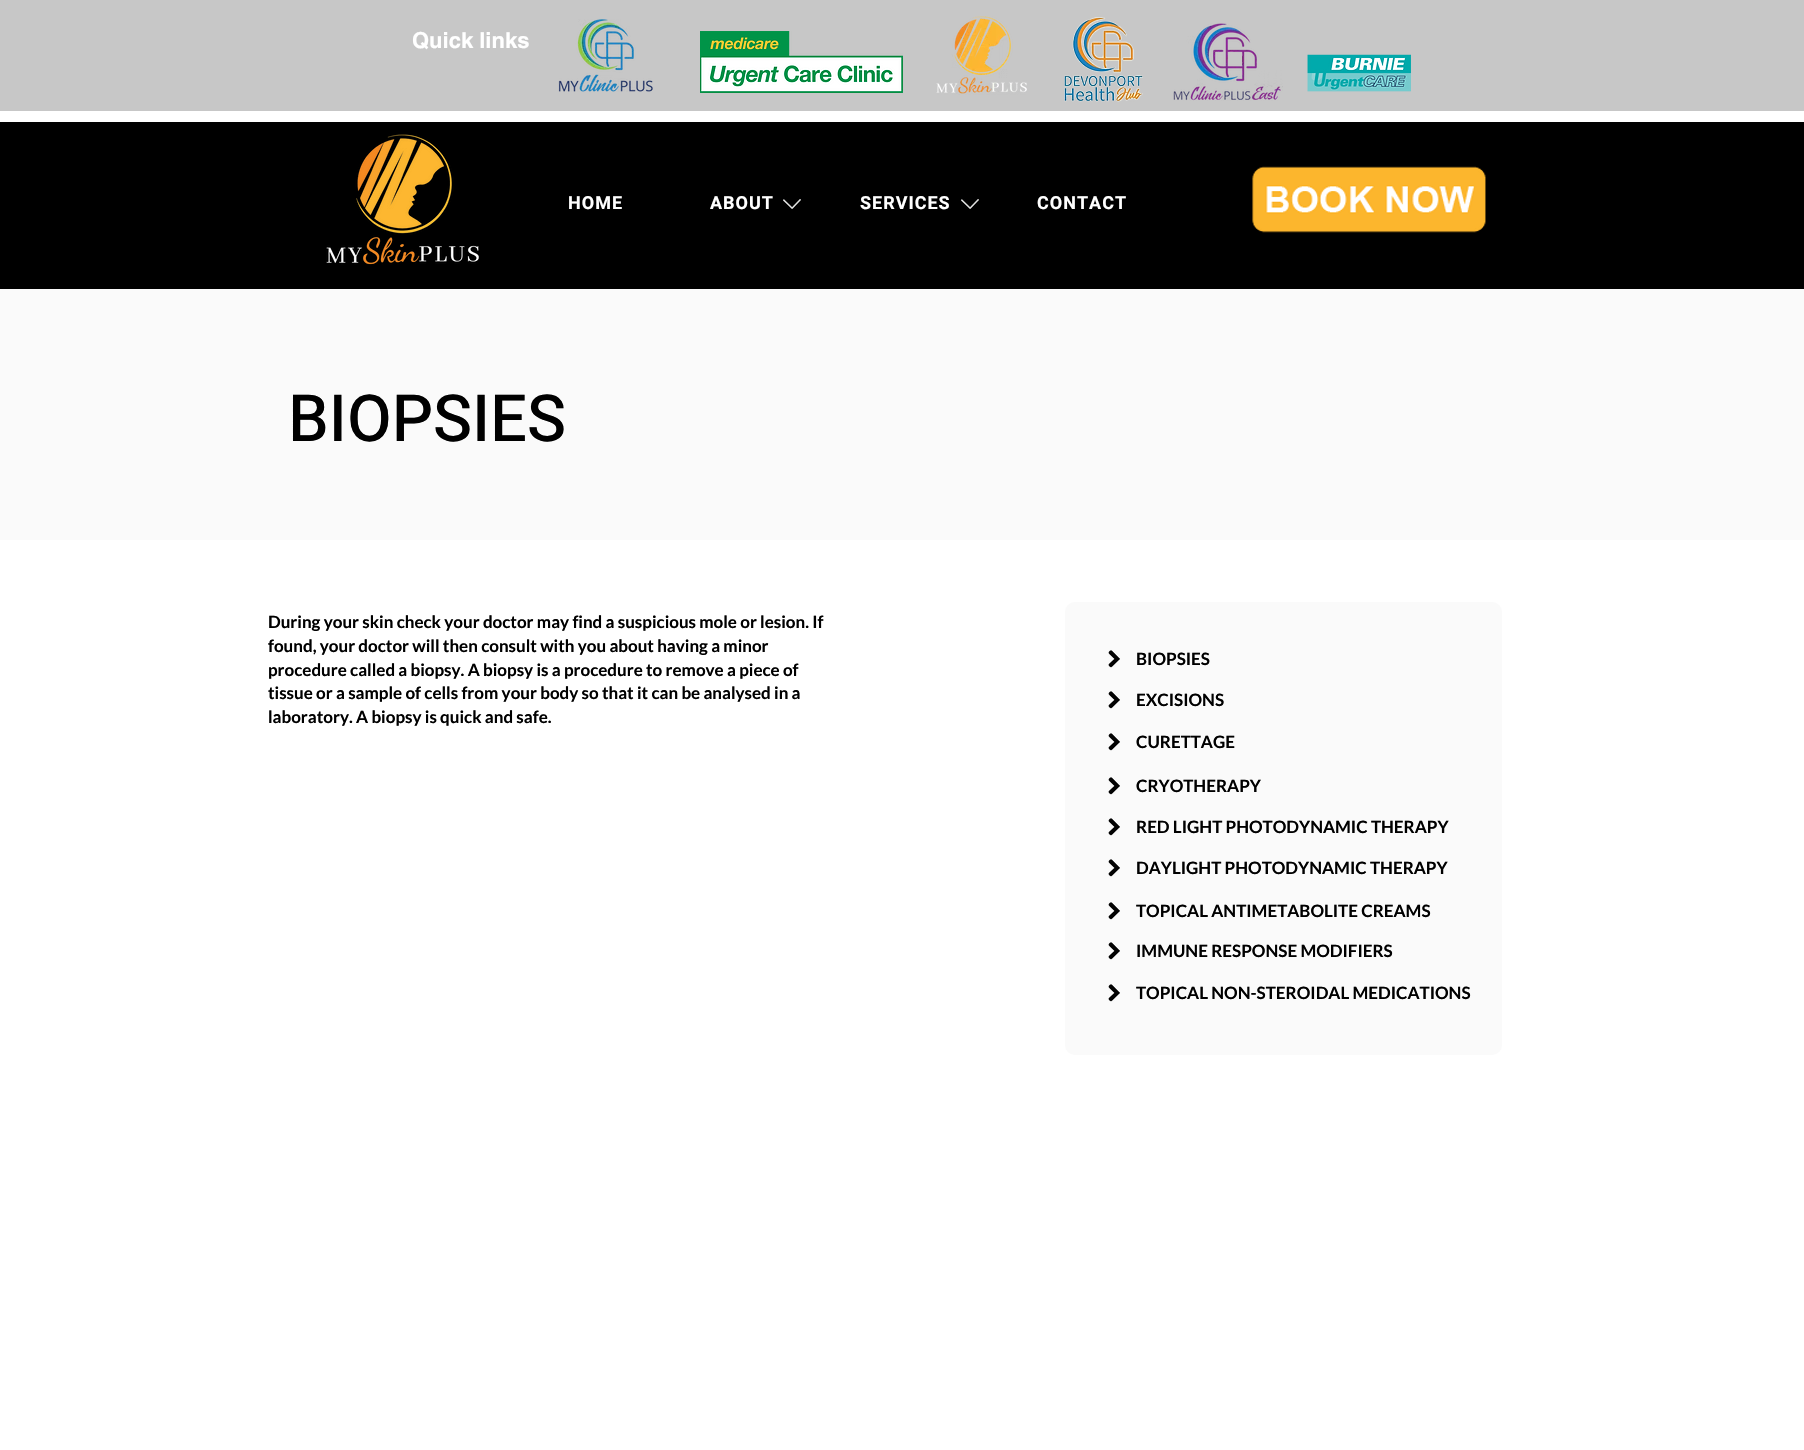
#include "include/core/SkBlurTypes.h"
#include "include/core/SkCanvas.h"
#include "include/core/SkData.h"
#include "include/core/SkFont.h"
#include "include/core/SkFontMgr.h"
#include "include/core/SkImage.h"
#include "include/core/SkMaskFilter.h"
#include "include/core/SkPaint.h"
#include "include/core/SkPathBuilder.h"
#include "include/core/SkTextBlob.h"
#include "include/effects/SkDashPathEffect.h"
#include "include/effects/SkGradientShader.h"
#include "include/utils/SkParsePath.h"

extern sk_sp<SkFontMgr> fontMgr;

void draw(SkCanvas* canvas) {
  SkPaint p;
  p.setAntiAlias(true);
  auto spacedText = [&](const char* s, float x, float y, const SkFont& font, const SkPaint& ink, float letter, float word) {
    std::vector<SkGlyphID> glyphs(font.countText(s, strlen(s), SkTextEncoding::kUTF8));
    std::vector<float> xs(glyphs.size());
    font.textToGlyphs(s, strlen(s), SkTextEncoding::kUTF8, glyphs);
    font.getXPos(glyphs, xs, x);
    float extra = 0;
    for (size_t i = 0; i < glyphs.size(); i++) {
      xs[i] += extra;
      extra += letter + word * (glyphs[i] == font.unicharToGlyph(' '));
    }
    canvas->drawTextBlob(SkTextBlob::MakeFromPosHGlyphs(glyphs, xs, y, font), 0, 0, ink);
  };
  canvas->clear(SK_ColorWHITE);
  p.setColor(SkColorSetRGB(199, 199, 199));
  canvas->drawRect(SkRect::MakeLTRB(0, 0, 1804, 111), p);
  canvas->drawImageRect(SkImages::DeferredFromEncodedData(SkData::MakeFromFileName("images/1.png")), SkRect::MakeLTRB(558, 19, 653, 92), SkSamplingOptions());
  canvas->drawImageRect(SkImages::DeferredFromEncodedData(SkData::MakeFromFileName("images/2.png")), SkRect::MakeLTRB(700, 31, 903, 93), SkSamplingOptions());
  canvas->drawImageRect(SkImages::DeferredFromEncodedData(SkData::MakeFromFileName("images/3.png")), SkRect::MakeLTRB(936, 16, 1027, 95), SkSamplingOptions());
  canvas->drawImageRect(SkImages::DeferredFromEncodedData(SkData::MakeFromFileName("images/4.png")), SkRect::MakeLTRB(1064, 17, 1143, 102), SkSamplingOptions());
  canvas->drawImageRect(SkImages::DeferredFromEncodedData(SkData::MakeFromFileName("images/5.png")), SkRect::MakeLTRB(1173, 23, 1283, 101), SkSamplingOptions());
  canvas->drawImageRect(SkImages::DeferredFromEncodedData(SkData::MakeFromFileName("images/6.png")), SkRect::MakeLTRB(1307, 54, 1411, 92), SkSamplingOptions());
  p.setColor(SK_ColorBLACK);
  canvas->drawRect(SkRect::MakeLTRB(0, 122, 1804, 289), p);
  canvas->drawImageRect(SkImages::DeferredFromEncodedData(SkData::MakeFromFileName("images/7.png")), SkRect::MakeLTRB(326, 134, 479, 265), SkSamplingOptions());
  canvas->drawImageRect(SkImages::DeferredFromEncodedData(SkData::MakeFromFileName("images/8.png")), SkRect::MakeLTRB(1252, 166, 1486, 233), SkSamplingOptions());
  canvas->drawImageRect(SkImages::DeferredFromEncodedData(SkData::MakeFromFileName("images/9.png")), SkRect::MakeLTRB(783, 199, 801, 209), SkSamplingOptions());
  canvas->drawImageRect(SkImages::DeferredFromEncodedData(SkData::MakeFromFileName("images/9.png")), SkRect::MakeLTRB(961, 199, 979, 209), SkSamplingOptions());
  p.setColor(SkColorSetRGB(250, 250, 250));
  canvas->drawRect(SkRect::MakeLTRB(0, 289, 1804, 540), p);
  canvas->drawRoundRect(SkRect::MakeLTRB(1065, 602, 1502, 1055), 10, 10, p);
  canvas->drawImageRect(SkImages::DeferredFromEncodedData(SkData::MakeFromFileName("images/10.png")), SkRect::MakeLTRB(1108, 650, 1120, 668), SkSamplingOptions());
  canvas->drawImageRect(SkImages::DeferredFromEncodedData(SkData::MakeFromFileName("images/10.png")), SkRect::MakeLTRB(1108, 691, 1120, 709), SkSamplingOptions());
  canvas->drawImageRect(SkImages::DeferredFromEncodedData(SkData::MakeFromFileName("images/10.png")), SkRect::MakeLTRB(1108, 733, 1120, 751), SkSamplingOptions());
  canvas->drawImageRect(SkImages::DeferredFromEncodedData(SkData::MakeFromFileName("images/10.png")), SkRect::MakeLTRB(1108, 777, 1120, 795), SkSamplingOptions());
  canvas->drawImageRect(SkImages::DeferredFromEncodedData(SkData::MakeFromFileName("images/10.png")), SkRect::MakeLTRB(1108, 818, 1120, 836), SkSamplingOptions());
  canvas->drawImageRect(SkImages::DeferredFromEncodedData(SkData::MakeFromFileName("images/10.png")), SkRect::MakeLTRB(1108, 859, 1120, 877), SkSamplingOptions());
  canvas->drawImageRect(SkImages::DeferredFromEncodedData(SkData::MakeFromFileName("images/10.png")), SkRect::MakeLTRB(1108, 902, 1120, 920), SkSamplingOptions());
  canvas->drawImageRect(SkImages::DeferredFromEncodedData(SkData::MakeFromFileName("images/10.png")), SkRect::MakeLTRB(1108, 942, 1120, 960), SkSamplingOptions());
  canvas->drawImageRect(SkImages::DeferredFromEncodedData(SkData::MakeFromFileName("images/10.png")), SkRect::MakeLTRB(1108, 984, 1120, 1002), SkSamplingOptions());
  SkFont font1(fontMgr->matchFamilyStyle("helvetica", SkFontStyle::Bold()), 22);
  font1.setSubpixel(true);
  p.setColor(SK_ColorWHITE);
  canvas->drawString("Quick links", 412, 48, font1, p);
  SkFont font2(fontMgr->matchFamilyStyle("Roboto", SkFontStyle::Bold()), 18);
  font2.setSubpixel(true);
  spacedText("HOME", 568, 209, font2, p, 1, 0);
  spacedText("ABOUT", 710, 209, font2, p, 1, 0);
  spacedText("SERVICES", 860, 209, font2, p, 1, 0);
  spacedText("CONTACT", 1037, 209, font2, p, 1, 0);
  SkFont font3(fontMgr->matchFamilyStyle("Heebo", SkFontStyle(500, SkFontStyle::kNormal_Width, SkFontStyle::kUpright_Slant)), 65);
  font3.setSubpixel(true);
  p.setColor(SK_ColorBLACK);
  canvas->drawString("BIOPSIES", 288, 441, font3, p);
  SkFont font4(fontMgr->matchFamilyStyle("Lato", SkFontStyle::Bold()), 17);
  font4.setSubpixel(true);
  canvas->drawString("During your skin check your doctor may find a suspicious mole or lesion. If", 268, 628, font4, p);
  canvas->drawString("found, your doctor will then consult with you about having a minor", 268, 652, font4, p);
  canvas->drawString("procedure called a biopsy. A biopsy is a procedure to remove a piece of", 268, 676, font4, p);
  canvas->drawString("tissue or a sample of cells from your body so that it can be analysed in a", 268, 699, font4, p);
  canvas->drawString("laboratory. A biopsy is quick and safe.", 268, 723, font4, p);
  canvas->drawString("BIOPSIES", 1136, 665, font4, p);
  canvas->drawString("EXCISIONS", 1136, 706, font4, p);
  canvas->drawString("CURETTAGE", 1136, 748, font4, p);
  canvas->drawString("CRYOTHERAPY", 1136, 792, font4, p);
  canvas->drawString("RED LIGHT PHOTODYNAMIC THERAPY", 1136, 833, font4, p);
  canvas->drawString("DAYLIGHT PHOTODYNAMIC THERAPY", 1136, 874, font4, p);
  canvas->drawString("TOPICAL ANTIMETABOLITE CREAMS", 1136, 917, font4, p);
  canvas->drawString("IMMUNE RESPONSE MODIFIERS", 1136, 957, font4, p);
  canvas->drawString("TOPICAL NON-STEROIDAL MEDICATIONS", 1136, 999, font4, p);
}
